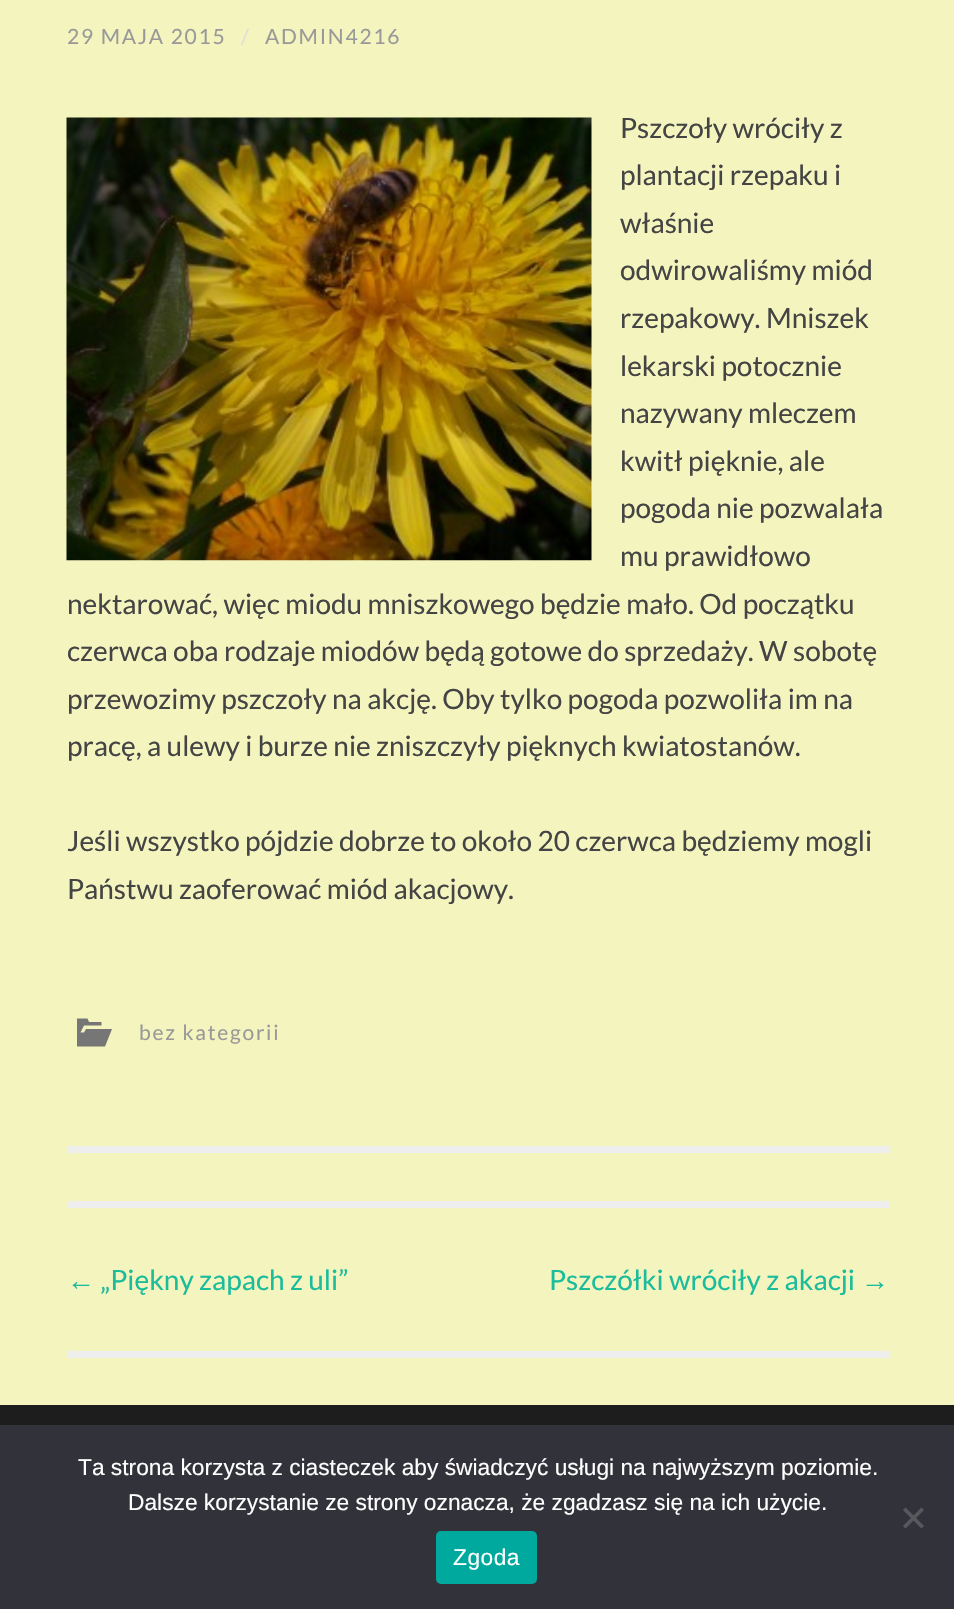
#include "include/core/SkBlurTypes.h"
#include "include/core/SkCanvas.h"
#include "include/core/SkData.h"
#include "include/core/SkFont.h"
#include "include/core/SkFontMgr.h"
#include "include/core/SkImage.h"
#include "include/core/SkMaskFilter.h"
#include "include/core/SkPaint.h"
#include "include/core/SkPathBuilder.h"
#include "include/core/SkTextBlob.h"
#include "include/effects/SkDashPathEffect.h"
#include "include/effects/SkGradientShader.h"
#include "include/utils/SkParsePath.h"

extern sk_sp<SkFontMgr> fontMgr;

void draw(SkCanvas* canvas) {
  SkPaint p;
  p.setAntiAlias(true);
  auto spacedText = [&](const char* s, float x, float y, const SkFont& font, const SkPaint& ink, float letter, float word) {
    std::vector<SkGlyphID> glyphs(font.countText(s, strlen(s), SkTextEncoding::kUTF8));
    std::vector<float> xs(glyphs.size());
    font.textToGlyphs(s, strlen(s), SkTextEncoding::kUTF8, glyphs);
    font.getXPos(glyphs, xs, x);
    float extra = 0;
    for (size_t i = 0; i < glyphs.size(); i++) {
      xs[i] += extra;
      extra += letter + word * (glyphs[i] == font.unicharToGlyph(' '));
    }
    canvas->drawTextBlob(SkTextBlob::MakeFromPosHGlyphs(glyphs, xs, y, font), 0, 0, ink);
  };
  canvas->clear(SkColorSetRGB(244, 244, 190));
  p.setColor(SkColorSetRGB(238, 238, 238));
  canvas->drawRect(SkRect::MakeLTRB(67, 1146, 889, 1153), p);
  canvas->drawImageRect(SkImages::DeferredFromEncodedData(SkData::MakeFromFileName("images/1.png")), SkRect::MakeLTRB(66, 117, 592, 561), SkSamplingOptions());
  p.setColor(SkColorSetRGB(118, 118, 118));
  canvas->drawPath(SkPathBuilder().moveTo(77, 1046.5f).lineTo(77, 1018.5f).lineTo(87.5f, 1018.5f).lineTo(89, 1022).lineTo(101.5f, 1022).lineTo(101.5f, 1025.5f).lineTo(84, 1025.5f).lineTo(80.5f, 1032.5f).lineTo(84, 1032.5f).lineTo(86, 1029).lineTo(112, 1029).lineTo(105, 1046.5f).close().detach(), p);
  p.setColor(SkColorSetRGB(238, 238, 238));
  canvas->drawRect(SkRect::MakeLTRB(67, 1201, 889, 1208), p);
  canvas->drawRect(SkRect::MakeLTRB(67, 1351, 889, 1358), p);
  p.setColor(SkColorSetRGB(29, 29, 29));
  canvas->drawRect(SkRect::MakeLTRB(0, 1405, 954, 1425), p);
  p.setColor(SkColorSetRGB(50, 50, 58));
  canvas->drawRect(SkRect::MakeLTRB(0, 1425, 954, 1609), p);
  p.setColor(SkColorSetRGB(89, 89, 93));
  canvas->drawPath(SkPathBuilder().moveTo(921.5f, 1507.5f).lineTo(924, 1510).lineTo(905.5f, 1528.5f).lineTo(903, 1526).close().detach(), p);
  canvas->drawPath(SkPathBuilder().moveTo(903, 1510).lineTo(905.5f, 1507.5f).lineTo(924, 1526).lineTo(921.5f, 1528.5f).close().detach(), p);
  p.setColor(SkColorSetRGB(0, 169, 157));
  canvas->drawRoundRect(SkRect::MakeLTRB(436, 1531, 537, 1584), 5, 5, p);
  SkFont font1(fontMgr->matchFamilyStyle("Lato", SkFontStyle::Normal()), 21);
  font1.setSubpixel(true);
  p.setColor(SkColorSetRGB(153, 153, 153));
  spacedText("29 MAJA 2015", 67, 44, font1, p, 1.75f, 0);
  p.setColor(SkColorSetRGB(221, 221, 221));
  spacedText("/", 241, 44, font1, p, 1.75f, 0);
  p.setColor(SkColorSetRGB(153, 153, 153));
  spacedText("ADMIN4216", 265, 44, font1, p, 1.75f, 0);
  SkFont font2(fontMgr->matchFamilyStyle("Lato", SkFontStyle::Normal()), 28);
  font2.setSubpixel(true);
  p.setColor(SkColorSetRGB(68, 68, 68));
  canvas->drawString("Pszczoły wróciły z", 620, 138, font2, p);
  canvas->drawString("plantacji rzepaku i", 620, 185, font2, p);
  canvas->drawString("właśnie", 620, 233, font2, p);
  canvas->drawString("odwirowaliśmy miód", 620, 280, font2, p);
  canvas->drawString("rzepakowy. Mniszek", 620, 328, font2, p);
  canvas->drawString("lekarski potocznie", 620, 376, font2, p);
  canvas->drawString("nazywany mleczem", 620, 423, font2, p);
  canvas->drawString("kwitł pięknie, ale", 620, 471, font2, p);
  canvas->drawString("pogoda nie pozwalała", 620, 518, font2, p);
  canvas->drawString("mu prawidłowo", 620, 566, font2, p);
  canvas->drawString("nektarować, więc miodu mniszkowego będzie mało. Od początku", 67, 614, font2, p);
  canvas->drawString("czerwca oba rodzaje miodów będą gotowe do sprzedaży. W sobotę", 67, 661, font2, p);
  canvas->drawString("przewozimy pszczoły na akcję. Oby tylko pogoda pozwoliła im na", 67, 709, font2, p);
  canvas->drawString("pracę, a ulewy i burze nie zniszczyły pięknych kwiatostanów.", 67, 756, font2, p);
  canvas->drawString("Jeśli wszystko pójdzie dobrze to około 20 czerwca będziemy mogli", 67, 851, font2, p);
  canvas->drawString("Państwu zaoferować miód akacjowy.", 67, 899, font2, p);
  p.setColor(SkColorSetRGB(153, 153, 153));
  spacedText("bez kategorii", 139, 1040, font1, p, 1.75f, 0);
  SkFont font3(fontMgr->matchFamilyStyle("Liberation Sans", SkFontStyle::Normal()), 28);
  font3.setSubpixel(true);
  p.setColor(SkColorSetRGB(26, 188, 156));
  canvas->drawString("←", 67, 1290, font3, p);
  canvas->drawString("„Piękny zapach z uli”", 100, 1290, font2, p);
  canvas->drawString("Pszczółki wróciły z akacji", 549, 1290, font2, p);
  canvas->drawString("→", 861, 1290, font3, p);
  SkFont font4(fontMgr->matchFamilyStyle("Liberation Sans", SkFontStyle::Normal()), 22.75f);
  font4.setSubpixel(true);
  p.setColor(SK_ColorWHITE);
  canvas->drawString("Ta strona korzysta z ciasteczek aby świadczyć usługi na najwyższym poziomie.", 78, 1475, font4, p);
  canvas->drawString("Dalsze korzystanie ze strony oznacza, że zgadzasz się na ich użycie.", 128, 1510, font4, p);
  spacedText("Zgoda", 453, 1565, font4, p, 0.5f, 0);
}
